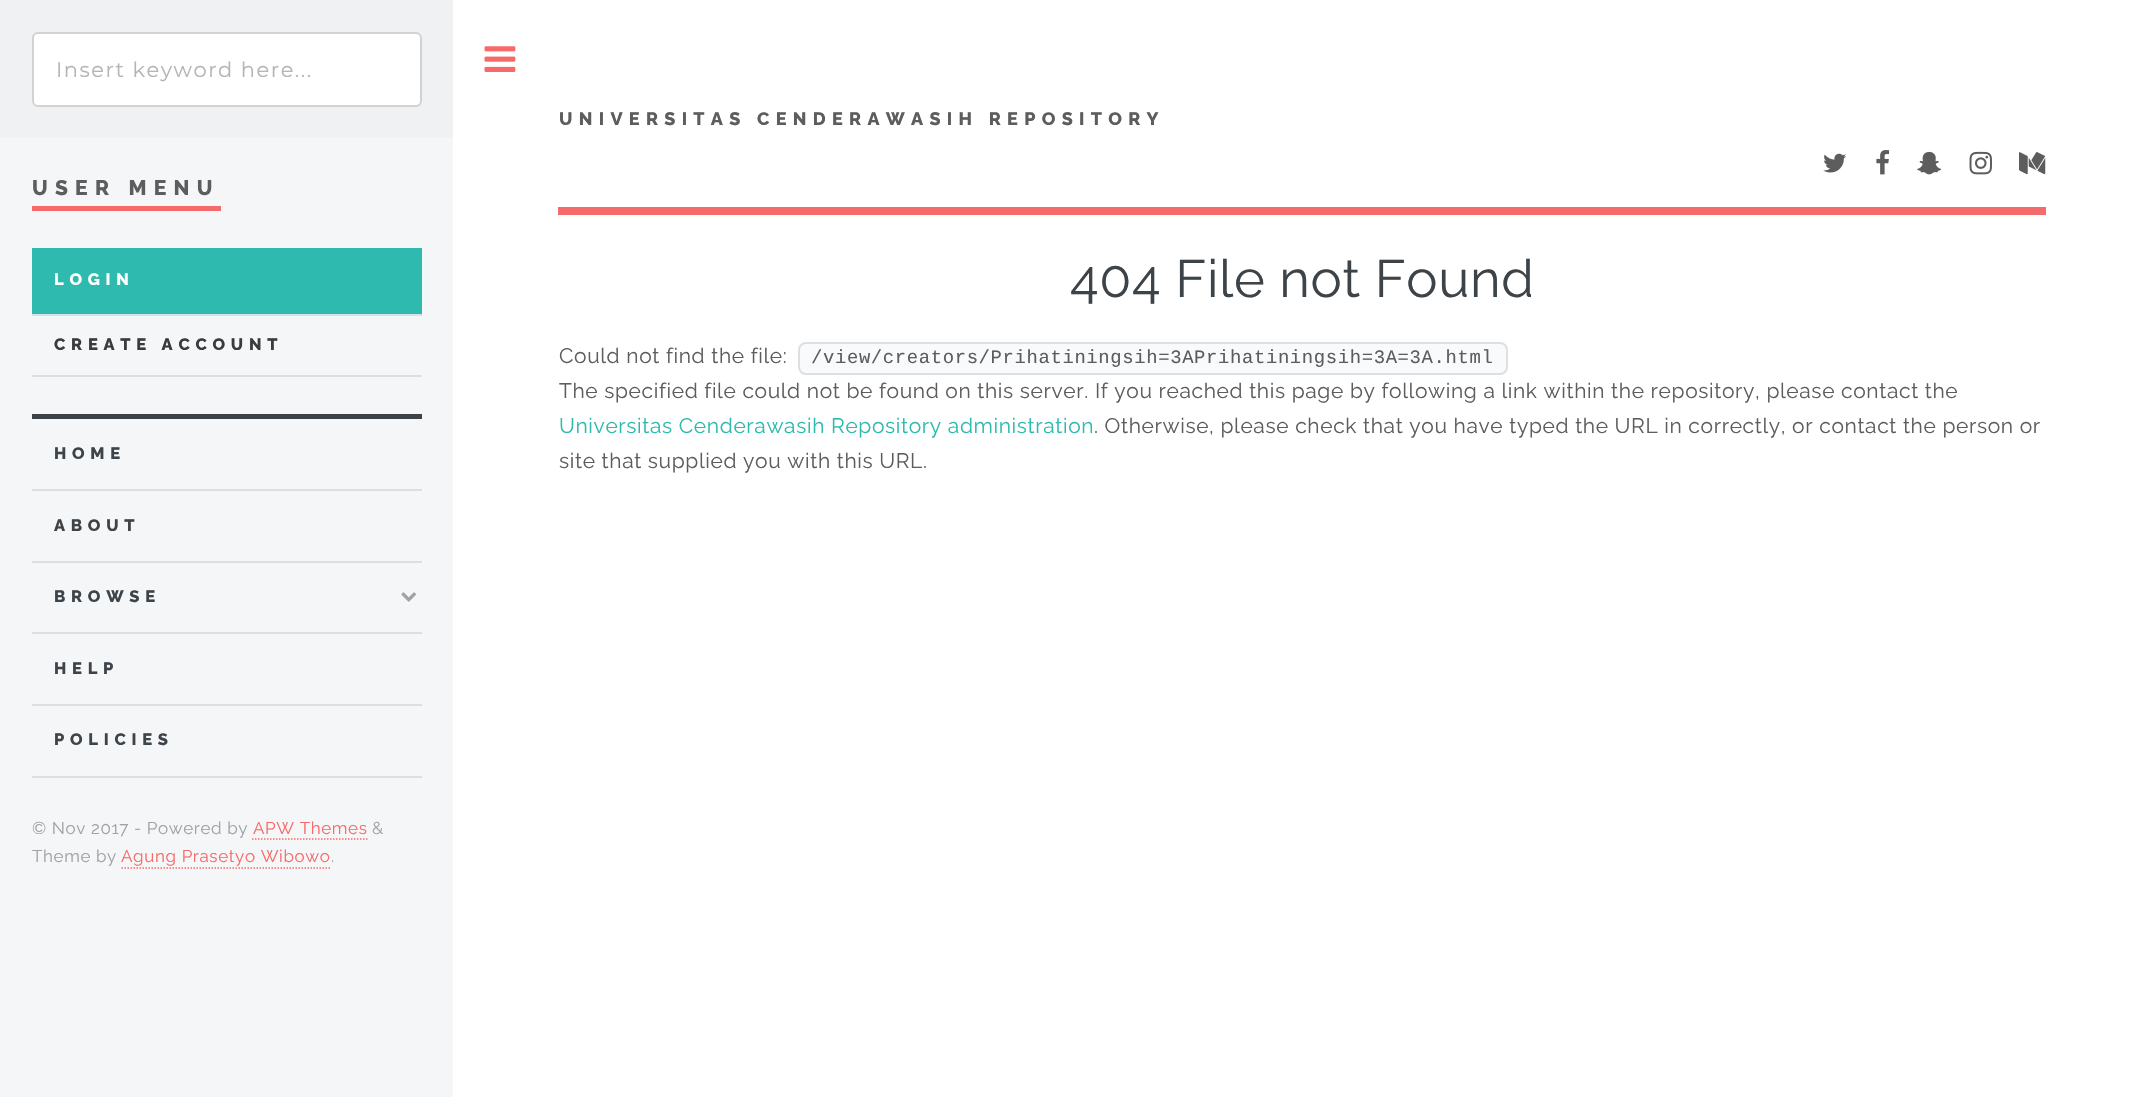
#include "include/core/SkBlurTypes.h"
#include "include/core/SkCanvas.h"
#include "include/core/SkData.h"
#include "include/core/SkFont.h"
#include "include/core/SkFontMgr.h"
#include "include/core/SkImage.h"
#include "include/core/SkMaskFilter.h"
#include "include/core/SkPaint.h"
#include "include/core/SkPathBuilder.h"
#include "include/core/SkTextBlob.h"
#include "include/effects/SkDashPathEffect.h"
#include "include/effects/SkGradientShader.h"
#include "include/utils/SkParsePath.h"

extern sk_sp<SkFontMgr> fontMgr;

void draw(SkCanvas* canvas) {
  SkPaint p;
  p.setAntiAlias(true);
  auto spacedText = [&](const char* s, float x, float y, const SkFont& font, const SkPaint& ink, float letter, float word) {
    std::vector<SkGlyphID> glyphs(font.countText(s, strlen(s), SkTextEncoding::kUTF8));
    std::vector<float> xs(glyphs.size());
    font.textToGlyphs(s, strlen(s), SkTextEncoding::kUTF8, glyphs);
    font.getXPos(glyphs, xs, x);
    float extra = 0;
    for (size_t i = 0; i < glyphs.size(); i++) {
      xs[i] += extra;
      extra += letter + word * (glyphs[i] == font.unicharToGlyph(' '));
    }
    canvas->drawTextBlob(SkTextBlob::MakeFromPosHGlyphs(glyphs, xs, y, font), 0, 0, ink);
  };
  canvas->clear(SK_ColorWHITE);
  p.setColor(SkColorSetRGB(245, 246, 247));
  canvas->drawRect(SkRect::MakeLTRB(0, 138, 453, 1097), p);
  p.setColor(SkColorSetRGB(239, 241, 242));
  canvas->drawRect(SkRect::MakeLTRB(0, 0, 453, 138), p);
  p.setColor(SK_ColorWHITE);
  canvas->drawRoundRect(SkRect::MakeLTRB(33, 33, 421, 106), 5, 5, p);
  p.setStyle(SkPaint::kStroke_Style);
  p.setStrokeWidth(2);
  p.setColor(SkColorSetRGB(210, 210, 210));
  canvas->drawRoundRect(SkRect::MakeLTRB(33, 33, 421, 106), 5, 5, p);
  p.setStyle(SkPaint::kFill_Style);
  p.setColor(SkColorSetRGB(245, 106, 106));
  canvas->drawRect(SkRect::MakeLTRB(32, 206, 221, 211), p);
  p.setColor(SkColorSetRGB(46, 186, 174));
  canvas->drawRect(SkRect::MakeLTRB(32, 248, 422, 314), p);
  p.setColor(SkColorSetRGB(219, 223, 225));
  canvas->drawRect(SkRect::MakeLTRB(32, 314, 422, 316), p);
  canvas->drawRect(SkRect::MakeLTRB(32, 375, 422, 377), p);
  p.setColor(SkColorSetRGB(61, 68, 73));
  canvas->drawRect(SkRect::MakeLTRB(32, 414, 422, 419), p);
  p.setColor(SkColorSetRGB(219, 223, 225));
  canvas->drawRect(SkRect::MakeLTRB(32, 489, 422, 491), p);
  canvas->drawRect(SkRect::MakeLTRB(32, 561, 422, 563), p);
  canvas->drawImageRect(SkImages::DeferredFromEncodedData(SkData::MakeFromFileName("images/1.png")), SkRect::MakeLTRB(401, 592, 417, 602), SkSamplingOptions());
  canvas->drawRect(SkRect::MakeLTRB(32, 632, 422, 634), p);
  canvas->drawRect(SkRect::MakeLTRB(32, 704, 422, 706), p);
  canvas->drawRect(SkRect::MakeLTRB(32, 776, 422, 778), p);
  p.setStyle(SkPaint::kStroke_Style);
  p.setStrokeWidth(1.5f);
  p.setColor(SkColorSetRGB(245, 106, 106));
  p.setPathEffect(SkDashPathEffect::Make({{1.5f, 1.5f}}, 0));
  canvas->drawPath(SkPathBuilder().moveTo(252, 839).lineTo(367.5f, 839).detach(), p);
  p.setPathEffect(nullptr);
  p.setPathEffect(SkDashPathEffect::Make({{1.5f, 1.5f}}, 0));
  canvas->drawPath(SkPathBuilder().moveTo(121.5f, 868).lineTo(331.5f, 868).detach(), p);
  p.setPathEffect(nullptr);
  canvas->drawImageRect(SkImages::DeferredFromEncodedData(SkData::MakeFromFileName("images/2.png")), SkRect::MakeLTRB(484, 46, 516, 72), SkSamplingOptions());
  p.setStyle(SkPaint::kFill_Style);
  canvas->drawRect(SkRect::MakeLTRB(558, 207, 2046, 215), p);
  canvas->drawImageRect(SkImages::DeferredFromEncodedData(SkData::MakeFromFileName("images/3.png")), SkRect::MakeLTRB(1823, 153, 1846, 173), SkSamplingOptions());
  canvas->drawImageRect(SkImages::DeferredFromEncodedData(SkData::MakeFromFileName("images/4.png")), SkRect::MakeLTRB(1876, 150, 1890, 175), SkSamplingOptions());
  canvas->drawImageRect(SkImages::DeferredFromEncodedData(SkData::MakeFromFileName("images/5.png")), SkRect::MakeLTRB(1917, 151, 1942, 175), SkSamplingOptions());
  canvas->drawImageRect(SkImages::DeferredFromEncodedData(SkData::MakeFromFileName("images/6.png")), SkRect::MakeLTRB(1969, 151, 1992, 175), SkSamplingOptions());
  canvas->drawImageRect(SkImages::DeferredFromEncodedData(SkData::MakeFromFileName("images/7.png")), SkRect::MakeLTRB(2019, 152, 2046, 175), SkSamplingOptions());
  p.setColor(SkColorSetRGB(249, 250, 251));
  canvas->drawRoundRect(SkRect::MakeLTRB(798, 342, 1508, 375), 8, 8, p);
  p.setStyle(SkPaint::kStroke_Style);
  p.setStrokeWidth(2);
  p.setColor(SkColorSetARGB(191, 210, 215, 217));
  canvas->drawRoundRect(SkRect::MakeLTRB(799, 343, 1507, 374), 7, 7, p);
  SkFont font1(fontMgr->matchFamilyStyle("Montserrat", SkFontStyle::Normal()), 21);
  font1.setSubpixel(true);
  p.setStyle(SkPaint::kFill_Style);
  p.setColor(SkColorSetRGB(181, 181, 181));
  spacedText("Insert keyword here...", 56, 77, font1, p, 1.5f, 0);
  SkFont font2(fontMgr->matchFamilyStyle("Raleway", SkFontStyle(800, SkFontStyle::kNormal_Width, SkFontStyle::kUpright_Slant)), 21);
  font2.setSubpixel(true);
  p.setColor(SkColorSetRGB(93, 93, 93));
  spacedText("USER MENU", 32, 195, font2, p, 7.25f, 0);
  SkFont font3(fontMgr->matchFamilyStyle("Raleway", SkFontStyle(800, SkFontStyle::kNormal_Width, SkFontStyle::kUpright_Slant)), 16.5f);
  font3.setSubpixel(true);
  p.setColor(SK_ColorWHITE);
  spacedText("LOGIN", 54, 285, font3, p, 5.75f, 0);
  p.setColor(SkColorSetRGB(60, 59, 59));
  spacedText("CREATE ACCOUNT", 54, 350, font3, p, 5.75f, 0);
  p.setColor(SkColorSetRGB(61, 68, 73));
  spacedText("HOME", 54, 459, font3, p, 5.75f, 0);
  spacedText("ABOUT", 54, 531, font3, p, 5.75f, 0);
  spacedText("BROWSE", 54, 602, font3, p, 5.75f, 0);
  spacedText("HELP", 54, 674, font3, p, 5.75f, 0);
  spacedText("POLICIES", 54, 745, font3, p, 5.75f, 0);
  SkFont font4(fontMgr->matchFamilyStyle("Raleway", SkFontStyle::Normal()), 17);
  font4.setSubpixel(true);
  p.setColor(SkColorSetRGB(159, 163, 166));
  spacedText("© Nov 2017 - Powered by", 32, 834, font4, p, 0.63f, 0);
  p.setColor(SkColorSetRGB(245, 106, 106));
  spacedText("APW Themes", 253, 834, font4, p, 0.63f, 0);
  p.setColor(SkColorSetRGB(159, 163, 166));
  spacedText("&", 372, 834, font4, p, 0.63f, 0);
  spacedText("Theme by", 32, 862, font4, p, 0.63f, 0);
  p.setColor(SkColorSetRGB(245, 106, 106));
  spacedText("Agung Prasetyo Wibowo", 121, 862, font4, p, 0.63f, 0);
  p.setColor(SkColorSetRGB(159, 163, 166));
  spacedText(".", 331, 862, font4, p, 0.63f, 0);
  SkFont font5(fontMgr->matchFamilyStyle("Raleway", SkFontStyle(800, SkFontStyle::kNormal_Width, SkFontStyle::kUpright_Slant)), 18);
  font5.setSubpixel(true);
  p.setColor(SkColorSetRGB(93, 93, 93));
  spacedText("UNIVERSITAS CENDERAWASIH REPOSITORY", 559, 125, font5, p, 6.3f, 0);
  SkFont font6(fontMgr->matchFamilyStyle("Raleway", SkFontStyle::Normal()), 52.5f);
  font6.setSubpixel(true);
  p.setColor(SkColorSetRGB(61, 68, 73));
  spacedText("404 File not Found", 1070, 297, font6, p, 0.63f, 0);
  SkFont font7(fontMgr->matchFamilyStyle("Raleway", SkFontStyle::Normal()), 21);
  font7.setSubpixel(true);
  p.setColor(SkColorSetRGB(93, 93, 93));
  spacedText("Could not find the file:", 559, 363, font7, p, 0.63f, 0);
  SkFont font8(fontMgr->matchFamilyStyle("Liberation Mono", SkFontStyle::Normal()), 18.9f);
  font8.setSubpixel(true);
  spacedText("/view/creators/Prihatiningsih=3APrihatiningsih=3A=3A.html", 811, 363, font8, p, 0.63f, 0);
  spacedText("The specified file could not be found on this server. If you reached this page by following a link within the repository, please contact the", 559, 398, font7, p, 0.63f, 0);
  p.setColor(SkColorSetRGB(46, 186, 174));
  spacedText("Universitas Cenderawasih Repository administration", 559, 433, font7, p, 0.63f, 0);
  p.setColor(SkColorSetRGB(93, 93, 93));
  spacedText(". Otherwise, please check that you have typed the URL in correctly, or contact the person or", 1094, 433, font7, p, 0.63f, 0);
  spacedText("site that supplied you with this URL.", 559, 468, font7, p, 0.63f, 0);
}
